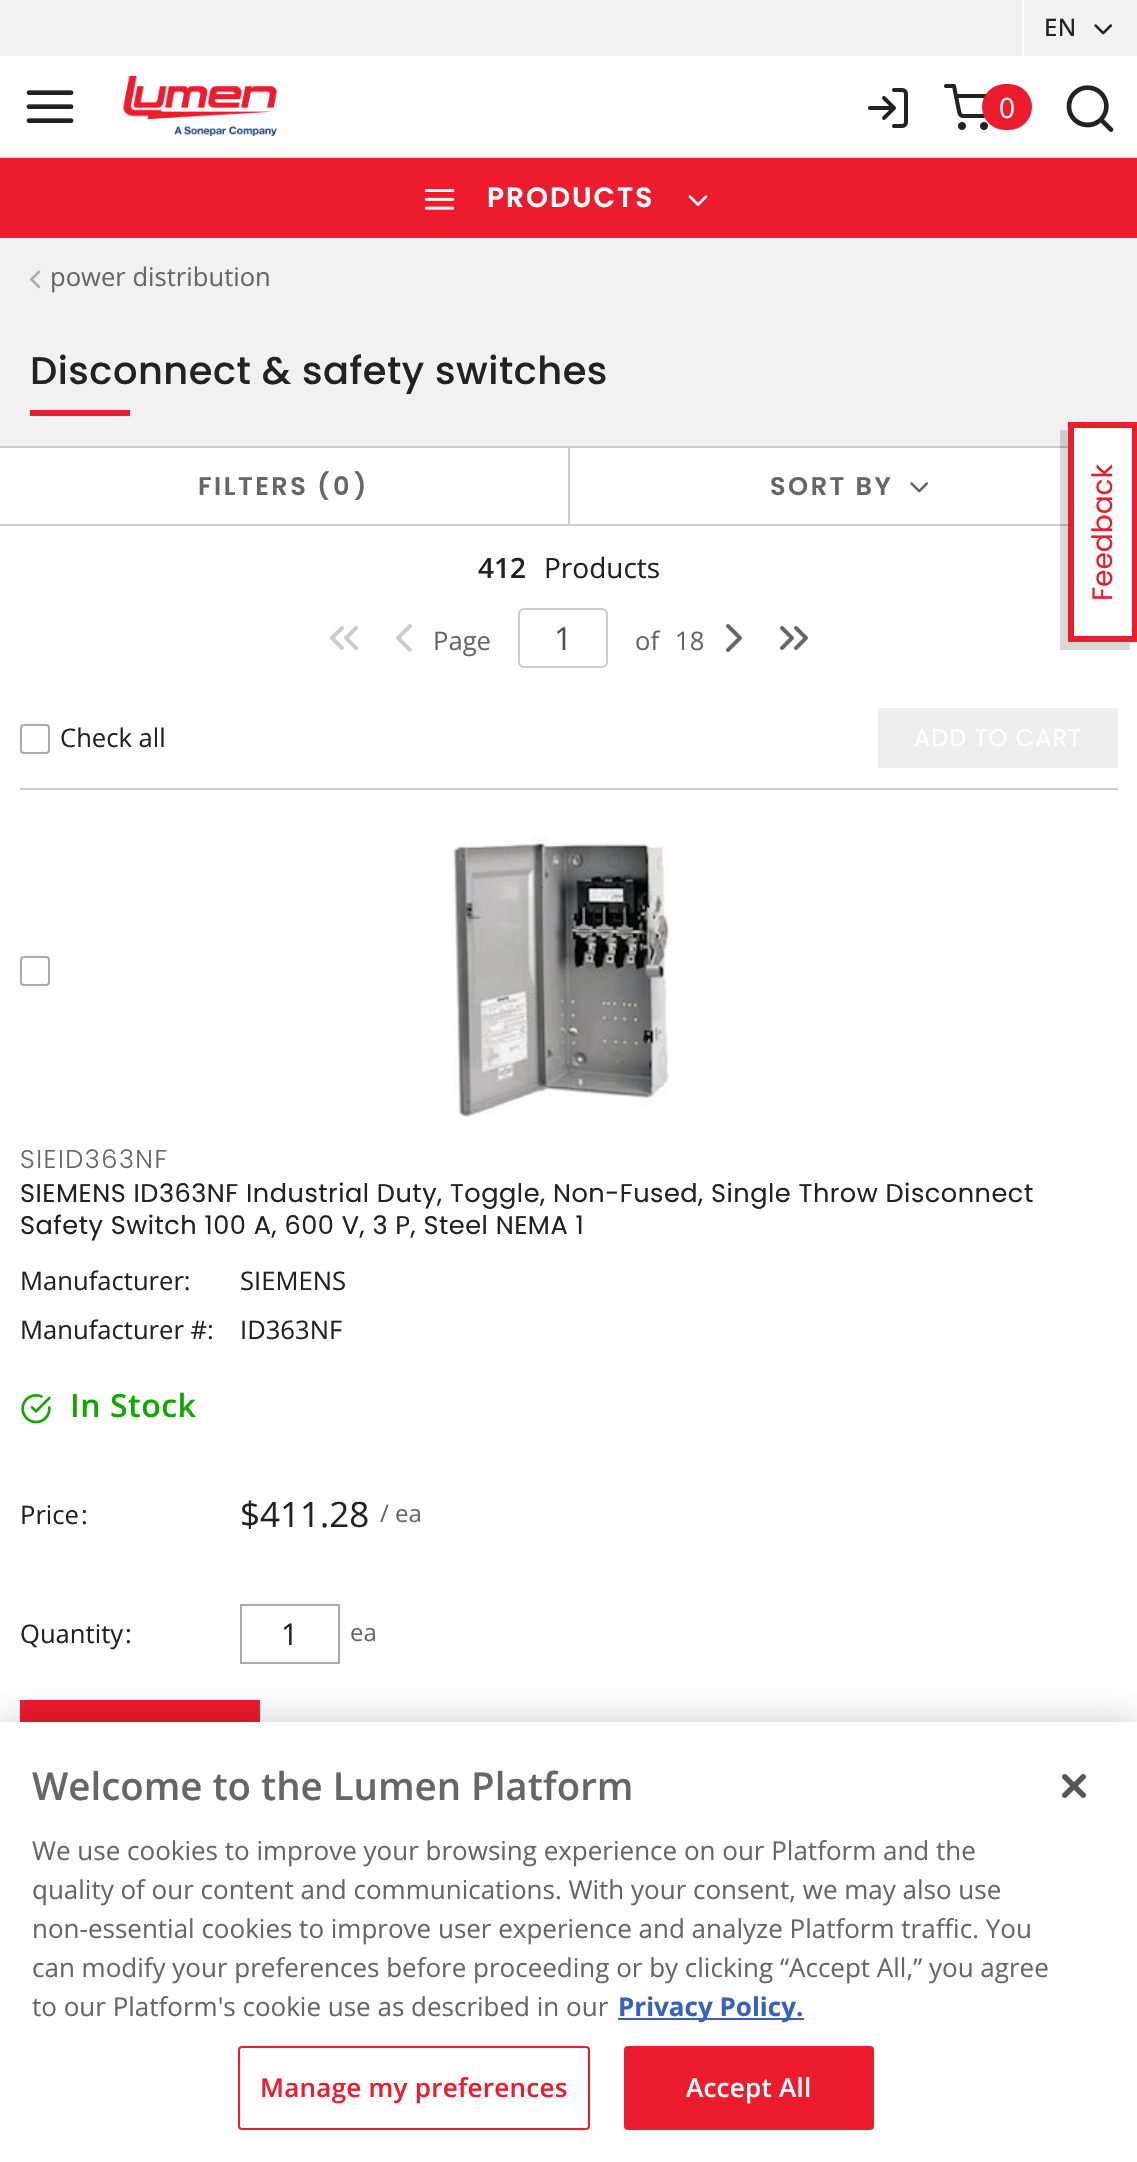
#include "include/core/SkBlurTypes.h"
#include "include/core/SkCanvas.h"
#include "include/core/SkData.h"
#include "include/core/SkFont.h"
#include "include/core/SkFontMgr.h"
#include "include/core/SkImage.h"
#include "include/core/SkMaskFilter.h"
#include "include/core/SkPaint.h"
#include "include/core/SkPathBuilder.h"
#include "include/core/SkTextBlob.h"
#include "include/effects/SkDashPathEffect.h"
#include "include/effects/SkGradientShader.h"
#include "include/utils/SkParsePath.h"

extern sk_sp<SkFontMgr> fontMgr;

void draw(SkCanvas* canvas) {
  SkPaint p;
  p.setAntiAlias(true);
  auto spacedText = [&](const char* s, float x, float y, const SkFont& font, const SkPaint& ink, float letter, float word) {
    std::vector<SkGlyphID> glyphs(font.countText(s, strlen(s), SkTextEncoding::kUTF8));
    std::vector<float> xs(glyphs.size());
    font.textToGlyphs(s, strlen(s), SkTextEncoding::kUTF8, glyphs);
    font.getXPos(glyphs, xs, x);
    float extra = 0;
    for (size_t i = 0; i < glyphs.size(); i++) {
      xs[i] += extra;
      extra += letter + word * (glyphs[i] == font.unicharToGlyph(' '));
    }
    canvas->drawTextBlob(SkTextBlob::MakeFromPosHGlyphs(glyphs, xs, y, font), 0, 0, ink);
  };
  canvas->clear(SK_ColorWHITE);
  p.setColor(SkColorSetRGB(241, 241, 241));
  canvas->drawRect(SkRect::MakeLTRB(0, 0, 1137, 56), p);
  p.setColor(SK_ColorWHITE);
  canvas->drawRect(SkRect::MakeLTRB(1022, 0, 1024, 56), p);
  canvas->drawImageRect(SkImages::DeferredFromEncodedData(SkData::MakeFromFileName("images/1.png")), SkRect::MakeLTRB(1094, 24, 1113, 35), SkSamplingOptions());
  p.setColor(SkColorSetRGB(238, 238, 238));
  canvas->drawRect(SkRect::MakeLTRB(0, 156, 1137, 158), p);
  canvas->drawImageRect(SkImages::DeferredFromEncodedData(SkData::MakeFromFileName("images/2.png")), SkRect::MakeLTRB(123, 76, 277, 136), SkSamplingOptions());
  canvas->drawImageRect(SkImages::DeferredFromEncodedData(SkData::MakeFromFileName("images/3.png")), SkRect::MakeLTRB(868, 88, 908, 128), SkSamplingOptions());
  canvas->drawImageRect(SkImages::DeferredFromEncodedData(SkData::MakeFromFileName("images/4.png")), SkRect::MakeLTRB(944, 84, 988, 130), SkSamplingOptions());
  p.setColor(SkColorSetRGB(237, 27, 46));
  canvas->drawRoundRect(SkRect::MakeLTRB(982, 84, 1032, 130), 23, 23, p);
  canvas->drawImageRect(SkImages::DeferredFromEncodedData(SkData::MakeFromFileName("images/5.png")), SkRect::MakeLTRB(1066, 85, 1114, 132), SkSamplingOptions());
  canvas->drawImageRect(SkImages::DeferredFromEncodedData(SkData::MakeFromFileName("images/6.png")), SkRect::MakeLTRB(26, 90, 74, 123), SkSamplingOptions());
  canvas->drawRect(SkRect::MakeLTRB(0, 158, 1137, 238), p);
  canvas->drawImageRect(SkImages::DeferredFromEncodedData(SkData::MakeFromFileName("images/7.png")), SkRect::MakeLTRB(424, 189, 455, 210), SkSamplingOptions());
  canvas->drawImageRect(SkImages::DeferredFromEncodedData(SkData::MakeFromFileName("images/8.png")), SkRect::MakeLTRB(688, 195, 708, 206), SkSamplingOptions());
  p.setColor(SkColorSetRGB(241, 241, 241));
  canvas->drawRect(SkRect::MakeLTRB(0, 238, 1137, 446), p);
  canvas->drawImageRect(SkImages::DeferredFromEncodedData(SkData::MakeFromFileName("images/9.png")), SkRect::MakeLTRB(30, 270, 41, 289), SkSamplingOptions());
  p.setColor(SkColorSetRGB(237, 27, 46));
  canvas->drawRect(SkRect::MakeLTRB(30, 410, 130, 416), p);
  p.setColor(SkColorSetRGB(204, 204, 204));
  canvas->drawRect(SkRect::MakeLTRB(0, 446, 1068, 448), p);
  canvas->drawRect(SkRect::MakeLTRB(568, 446, 570, 526), p);
  canvas->drawRect(SkRect::MakeLTRB(0, 524, 1068, 526), p);
  canvas->drawImageRect(SkImages::DeferredFromEncodedData(SkData::MakeFromFileName("images/10.png")), SkRect::MakeLTRB(910, 482, 929, 493), SkSamplingOptions());
  canvas->drawImageRect(SkImages::DeferredFromEncodedData(SkData::MakeFromFileName("images/11.png")), SkRect::MakeLTRB(330, 626, 358, 650), SkSamplingOptions());
  canvas->drawImageRect(SkImages::DeferredFromEncodedData(SkData::MakeFromFileName("images/12.png")), SkRect::MakeLTRB(396, 624, 412, 652), SkSamplingOptions());
  p.setStyle(SkPaint::kStroke_Style);
  p.setStrokeWidth(2);
  canvas->drawRoundRect(SkRect::MakeLTRB(519, 609, 607, 667), 5, 5, p);
  canvas->drawImageRect(SkImages::DeferredFromEncodedData(SkData::MakeFromFileName("images/13.png")), SkRect::MakeLTRB(726, 624, 742, 652), SkSamplingOptions());
  canvas->drawImageRect(SkImages::DeferredFromEncodedData(SkData::MakeFromFileName("images/14.png")), SkRect::MakeLTRB(780, 626, 808, 650), SkSamplingOptions());
  p.setStyle(SkPaint::kFill_Style);
  canvas->drawRect(SkRect::MakeLTRB(20, 788, 1118, 790), p);
  p.setStyle(SkPaint::kStroke_Style);
  p.setColor(SkColorSetRGB(170, 170, 170));
  canvas->drawRoundRect(SkRect::MakeLTRB(21, 725, 49, 753), 3, 3, p);
  p.setStyle(SkPaint::kFill_Style);
  p.setColor(SkColorSetRGB(238, 238, 238));
  canvas->drawRect(SkRect::MakeLTRB(878, 708, 1118, 768), p);
  p.setStyle(SkPaint::kStroke_Style);
  p.setColor(SkColorSetRGB(170, 170, 170));
  canvas->drawRoundRect(SkRect::MakeLTRB(21, 957, 49, 985), 3, 3, p);
  canvas->drawImageRect(SkImages::DeferredFromEncodedData(SkData::MakeFromFileName("images/15.png")), SkRect::MakeLTRB(453, 836, 669, 1120), SkSamplingOptions());
  canvas->drawImageRect(SkImages::DeferredFromEncodedData(SkData::MakeFromFileName("images/16.png")), SkRect::MakeLTRB(21, 1394, 51, 1424), SkSamplingOptions());
  canvas->drawRect(SkRect::MakeLTRB(241, 1605, 339, 1663), p);
  p.setStyle(SkPaint::kFill_Style);
  p.setColor(SkColorSetRGB(237, 27, 46));
  canvas->drawRect(SkRect::MakeLTRB(20, 1700, 260, 1722), p);
  p.setColor(SkColorSetARGB(38, 0, 0, 0));
  canvas->drawPath(SkPathBuilder().moveTo(1060, 430).lineTo(1060, 650).lineTo(1130, 650).lineTo(1130, 642).lineTo(1068, 642).lineTo(1068, 430).close().detach(), p);
  p.setColor(SK_ColorWHITE);
  canvas->drawRect(SkRect::MakeLTRB(1074, 428, 1132, 446), p);
  p.setStyle(SkPaint::kStroke_Style);
  p.setStrokeWidth(6);
  p.setColor(SkColorSetRGB(237, 27, 46));
  canvas->drawRect(SkRect::MakeLTRB(1071, 425, 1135, 639), p);
  p.setStyle(SkPaint::kFill_Style);
  p.setColor(SkColorSetARGB(51, 0, 0, 0));
  p.setMaskFilter(SkMaskFilter::MakeBlur(kNormal_SkBlurStyle, 18));
  canvas->drawRect(SkRect::MakeLTRB(0, 1722, 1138, 2162), p);
  p.setMaskFilter(nullptr);
  p.setColor(SK_ColorWHITE);
  canvas->drawRect(SkRect::MakeLTRB(0, 1722, 1137, 2162), p);
  p.setColor(SkColorSetRGB(56, 96, 190));
  canvas->drawRect(SkRect::MakeLTRB(618, 2018, 804, 2020), p);
  p.setStyle(SkPaint::kStroke_Style);
  p.setStrokeWidth(2);
  p.setColor(SkColorSetRGB(237, 27, 46));
  canvas->drawRoundRect(SkRect::MakeLTRB(239, 2047, 589, 2129), 3, 3, p);
  p.setStyle(SkPaint::kFill_Style);
  canvas->drawRoundRect(SkRect::MakeLTRB(625, 2047, 873, 2129), 3, 3, p);
  p.setStyle(SkPaint::kStroke_Style);
  canvas->drawRoundRect(SkRect::MakeLTRB(625, 2047, 873, 2129), 3, 3, p);
  canvas->drawImageRect(SkImages::DeferredFromEncodedData(SkData::MakeFromFileName("images/17.png")), SkRect::MakeLTRB(1062, 1774, 1086, 1798), SkSamplingOptions());
  SkFont font1(fontMgr->matchFamilyStyle("Open Sans", SkFontStyle(500, SkFontStyle::kNormal_Width, SkFontStyle::kUpright_Slant)), 24);
  font1.setSubpixel(true);
  p.setStyle(SkPaint::kFill_Style);
  p.setColor(SkColorSetRGB(34, 34, 34));
  spacedText("EN", 1044, 36, font1, p, 0.5f, 0);
  SkFont font2(fontMgr->matchFamilyStyle("Open Sans", SkFontStyle::Normal()), 28);
  font2.setSubpixel(true);
  p.setColor(SK_ColorWHITE);
  canvas->drawString("0", 999, 118, font2, p);
  SkFont font3(fontMgr->matchFamilyStyle("Poppins", SkFontStyle(600, SkFontStyle::kNormal_Width, SkFontStyle::kUpright_Slant)), 28);
  font3.setSubpixel(true);
  spacedText("PRODUCTS", 487, 207, font3, p, 2, 0);
  SkFont font4(fontMgr->matchFamilyStyle("Open Sans", SkFontStyle::Normal()), 25.6f);
  font4.setSubpixel(true);
  p.setColor(SkColorSetRGB(102, 102, 102));
  canvas->drawString("power distribution", 50, 286, font4, p);
  SkFont font5(fontMgr->matchFamilyStyle("Poppins", SkFontStyle(500, SkFontStyle::kNormal_Width, SkFontStyle::kUpright_Slant)), 38.4f);
  font5.setSubpixel(true);
  p.setColor(SkColorSetRGB(34, 34, 34));
  spacedText("Disconnect & safety switches", 30, 384, font5, p, 0.5f, 0);
  SkFont font6(fontMgr->matchFamilyStyle("Poppins", SkFontStyle(600, SkFontStyle::kNormal_Width, SkFontStyle::kUpright_Slant)), 25.6f);
  font6.setSubpixel(true);
  p.setColor(SkColorSetRGB(102, 102, 102));
  spacedText("FILTERS (", 198, 495, font6, p, 2.5f, 0);
  spacedText("0", 333, 495, font6, p, 2.5f, 0);
  spacedText(")", 354, 495, font6, p, 2.5f, 0);
  spacedText("SORT BY", 770, 495, font6, p, 2.5f, 0);
  SkFont font7(fontMgr->matchFamilyStyle("Open Sans", SkFontStyle(600, SkFontStyle::kNormal_Width, SkFontStyle::kUpright_Slant)), 28);
  font7.setSubpixel(true);
  p.setColor(SkColorSetRGB(34, 34, 34));
  canvas->drawString("412", 478, 578, font7, p);
  canvas->drawString("Products", 544, 578, font2, p);
  p.setColor(SkColorSetRGB(102, 102, 102));
  canvas->drawString("Page", 433, 650, font4, p);
  SkFont font8(fontMgr->matchFamilyStyle("Open Sans", SkFontStyle::Normal()), 32);
  font8.setSubpixel(true);
  p.setColor(SkColorSetRGB(73, 80, 87));
  canvas->drawString("1", 554, 650, font8, p);
  p.setColor(SkColorSetRGB(102, 102, 102));
  canvas->drawString("of", 635, 650, font4, p);
  canvas->drawString("18", 675, 650, font4, p);
  p.setColor(SkColorSetRGB(34, 34, 34));
  canvas->drawString("Check all", 60, 747, font4, p);
  SkFont font9(fontMgr->matchFamilyStyle("Poppins", SkFontStyle::Normal()), 24);
  font9.setSubpixel(true);
  p.setColor(SK_ColorWHITE);
  spacedText("ADD TO CART", 914, 746, font9, p, 1, 0);
  SkFont font10(fontMgr->matchFamilyStyle("Poppins", SkFontStyle(300, SkFontStyle::kNormal_Width, SkFontStyle::kUpright_Slant)), 25.6f);
  font10.setSubpixel(true);
  p.setColor(SkColorSetRGB(102, 102, 102));
  spacedText("SIEID363NF", 20, 1168, font10, p, 1.5f, 0);
  SkFont font11(fontMgr->matchFamilyStyle("Poppins", SkFontStyle::Normal()), 25.6f);
  font11.setSubpixel(true);
  p.setColor(SkColorSetRGB(34, 34, 34));
  spacedText("SIEMENS ID363NF Industrial Duty, Toggle, Non-Fused, Single Throw Disconnect", 20, 1202, font11, p, 0.5f, 0);
  spacedText("Safety Switch 100 A, 600 V, 3 P, Steel NEMA 1", 20, 1234, font11, p, 0.5f, 0);
  canvas->drawString("Manufacturer:", 20, 1290, font4, p);
  canvas->drawString("SIEMENS", 240, 1290, font4, p);
  canvas->drawString("Manufacturer #:", 20, 1339, font4, p);
  canvas->drawString("ID363NF", 240, 1339, font4, p);
  SkFont font12(fontMgr->matchFamilyStyle("Open Sans", SkFontStyle(600, SkFontStyle::kNormal_Width, SkFontStyle::kUpright_Slant)), 32);
  font12.setSubpixel(true);
  p.setColor(SkColorSetRGB(16, 167, 0));
  spacedText("In Stock", 70, 1417, font12, p, 0.5f, 0);
  p.setColor(SkColorSetRGB(34, 34, 34));
  canvas->drawString("Price", 20, 1524, font4, p);
  canvas->drawString(":", 81, 1524, font4, p);
  SkFont font13(fontMgr->matchFamilyStyle("Open Sans", SkFontStyle::Normal()), 35);
  font13.setSubpixel(true);
  canvas->drawString("$411.28", 240, 1527, font13, p);
  SkFont font14(fontMgr->matchFamilyStyle("Open Sans", SkFontStyle::Normal()), 24);
  font14.setSubpixel(true);
  p.setColor(SkColorSetRGB(102, 102, 102));
  canvas->drawString("/ ea", 380, 1522, font14, p);
  p.setColor(SkColorSetRGB(34, 34, 34));
  canvas->drawString("Quantity", 20, 1643, font4, p);
  canvas->drawString(":", 125, 1643, font4, p);
  SkFont font15(fontMgr->matchFamilyStyle("Open Sans", SkFontStyle::Normal()), 30);
  font15.setSubpixel(true);
  canvas->drawString("1", 281, 1645, font15, p);
  p.setColor(SkColorSetRGB(102, 102, 102));
  canvas->drawString("ea", 350, 1641, font14, p);
  SkFont font16(fontMgr->matchFamilyStyle("Poppins", SkFontStyle::Normal()), 28);
  font16.setSubpixel(true);
  p.setColor(SkColorSetRGB(237, 27, 46));
  canvas->save();
  canvas->rotate(-90, 1112, 601);
  canvas->drawString("Feedback", 1112, 601, font16, p);
  canvas->restore();
  SkFont font17(fontMgr->matchFamilyStyle("Open Sans", SkFontStyle(600, SkFontStyle::kNormal_Width, SkFontStyle::kUpright_Slant)), 38.4f);
  font17.setSubpixel(true);
  p.setColor(SkColorSetRGB(102, 102, 102));
  canvas->drawString("Welcome to the Lumen Platform", 32, 1800, font17, p);
  SkFont font18(fontMgr->matchFamilyStyle("Open Sans", SkFontStyle::Normal()), 26);
  font18.setSubpixel(true);
  canvas->drawString("We use cookies to improve your browsing experience on our Platform and the", 32, 1860, font18, p);
  canvas->drawString("quality of our content and communications. With your consent, we may also use", 32, 1899, font18, p);
  canvas->drawString("non-essential cookies to improve user experience and analyze Platform traffic. You", 32, 1938, font18, p);
  canvas->drawString("can modify your preferences before proceeding or by clicking “Accept All,” you agree", 32, 1977, font18, p);
  canvas->drawString("to our Platform's cookie use as described in our", 32, 2016, font18, p);
  SkFont font19(fontMgr->matchFamilyStyle("Open Sans", SkFontStyle::Bold()), 26);
  font19.setSubpixel(true);
  p.setColor(SkColorSetRGB(56, 96, 190));
  canvas->drawString("Privacy Policy.", 618, 2016, font19, p);
  SkFont font20(fontMgr->matchFamilyStyle("Open Sans", SkFontStyle(600, SkFontStyle::kNormal_Width, SkFontStyle::kUpright_Slant)), 26);
  font20.setSubpixel(true);
  p.setColor(SkColorSetRGB(237, 27, 46));
  spacedText("Manage my preferences", 260, 2097, font20, p, 0.25f, 0);
  p.setColor(SK_ColorWHITE);
  spacedText("Accept All", 686, 2097, font20, p, 0.25f, 0);
}
